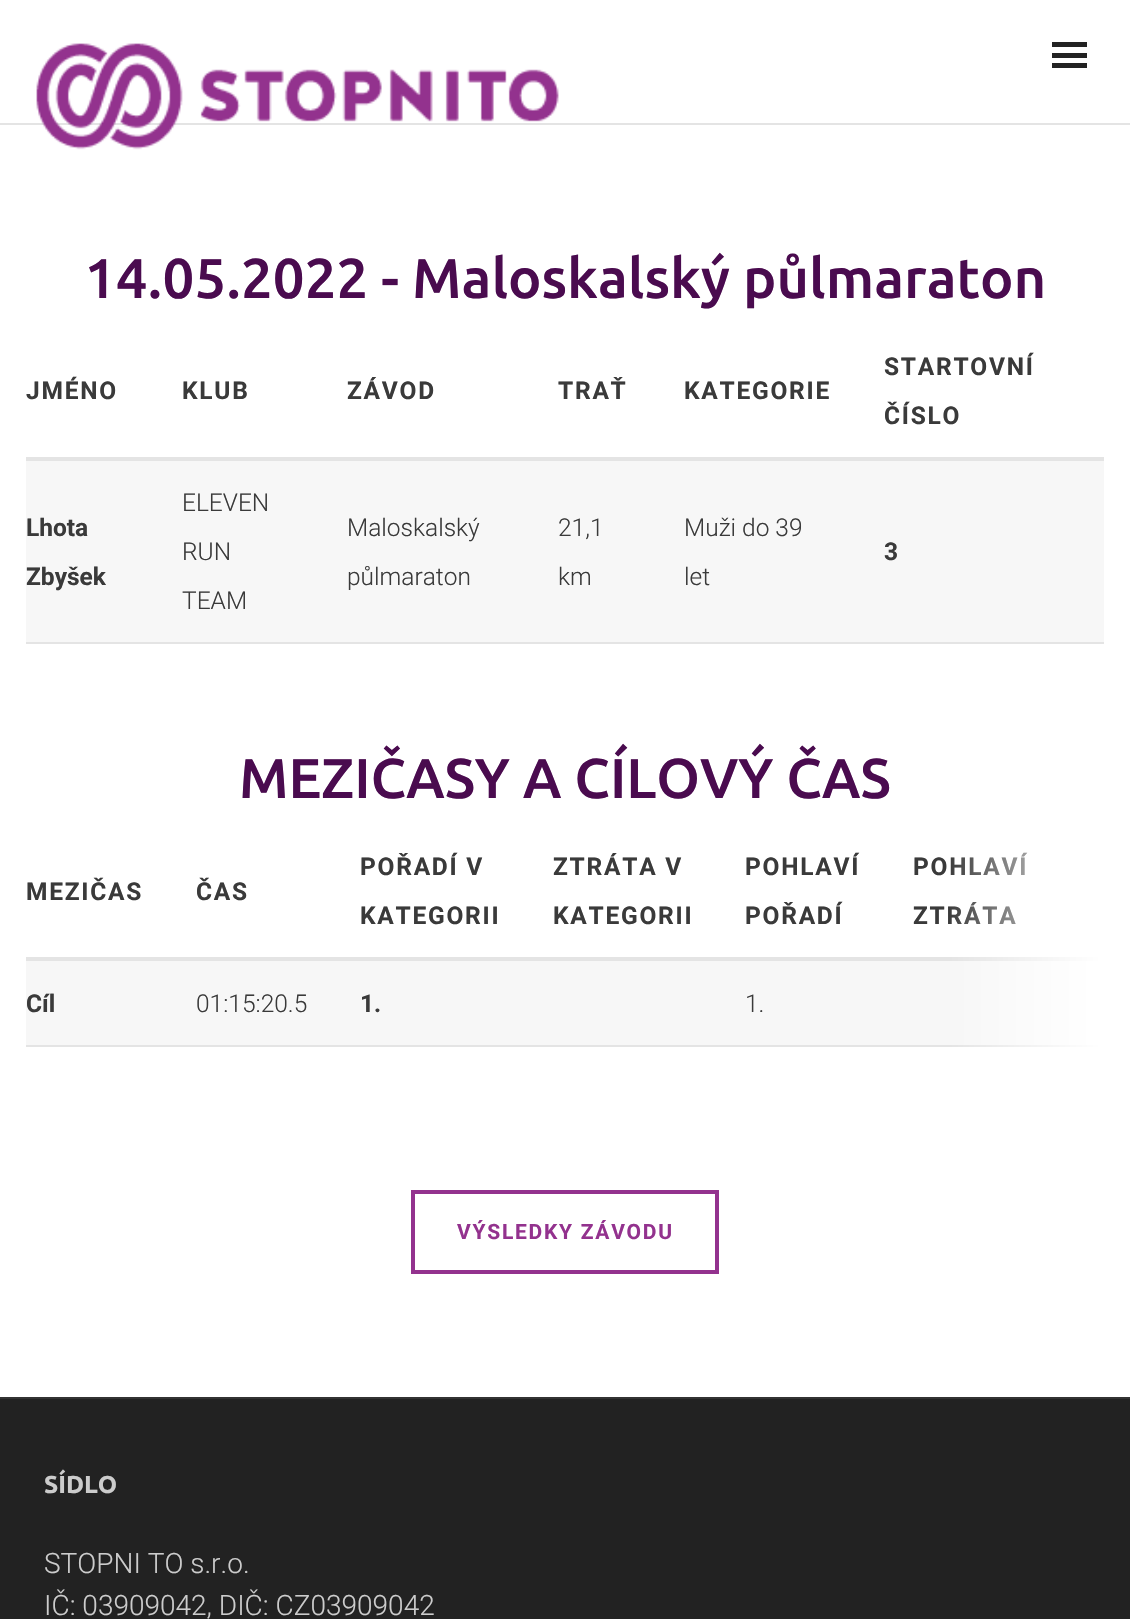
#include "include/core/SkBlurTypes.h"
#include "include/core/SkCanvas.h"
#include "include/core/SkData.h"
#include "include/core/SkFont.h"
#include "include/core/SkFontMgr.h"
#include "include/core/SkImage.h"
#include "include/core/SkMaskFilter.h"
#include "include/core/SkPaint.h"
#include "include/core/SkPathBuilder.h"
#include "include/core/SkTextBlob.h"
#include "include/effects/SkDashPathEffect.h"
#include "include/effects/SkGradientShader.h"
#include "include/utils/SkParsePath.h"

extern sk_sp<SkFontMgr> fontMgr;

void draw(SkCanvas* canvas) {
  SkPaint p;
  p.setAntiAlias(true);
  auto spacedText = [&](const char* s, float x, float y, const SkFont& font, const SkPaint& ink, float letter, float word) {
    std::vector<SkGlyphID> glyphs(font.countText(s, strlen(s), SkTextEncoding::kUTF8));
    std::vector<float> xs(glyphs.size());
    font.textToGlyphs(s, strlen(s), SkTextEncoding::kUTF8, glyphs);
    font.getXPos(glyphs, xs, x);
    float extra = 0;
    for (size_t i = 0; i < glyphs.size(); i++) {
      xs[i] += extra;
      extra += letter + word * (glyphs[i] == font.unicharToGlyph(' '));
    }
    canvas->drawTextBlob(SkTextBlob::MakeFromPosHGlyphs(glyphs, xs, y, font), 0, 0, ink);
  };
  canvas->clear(SkColorSetRGB(34, 34, 34));
  p.setColor(SK_ColorWHITE);
  canvas->drawRect(SkRect::MakeLTRB(0, 0, 1130, 123), p);
  p.setColor(SkColorSetRGB(228, 228, 228));
  canvas->drawRect(SkRect::MakeLTRB(0, 123, 1130, 125), p);
  p.setColor(SK_ColorWHITE);
  canvas->drawRect(SkRect::MakeLTRB(0, 125, 1130, 1397), p);
  canvas->drawImageRect(SkImages::DeferredFromEncodedData(SkData::MakeFromFileName("images/1.png")), SkRect::MakeLTRB(36, 43, 559, 150), SkSamplingOptions());
  p.setColor(SkColorSetRGB(34, 34, 34));
  canvas->drawRect(SkRect::MakeLTRB(1052, 53, 1087, 58), p);
  canvas->drawRect(SkRect::MakeLTRB(1052, 42, 1087, 47), p);
  canvas->drawRect(SkRect::MakeLTRB(1052, 63, 1087, 68), p);
  p.setColor(SkColorSetRGB(228, 228, 228));
  canvas->drawRect(SkRect::MakeLTRB(26, 642, 1104, 644), p);
  canvas->drawRect(SkRect::MakeLTRB(26, 457, 1104, 461), p);
  p.setColor(SkColorSetRGB(247, 247, 247));
  canvas->drawRect(SkRect::MakeLTRB(26, 461, 1104, 642), p);
  p.setColor(SkColorSetRGB(228, 228, 228));
  canvas->drawRect(SkRect::MakeLTRB(26, 1045, 1104, 1047), p);
  canvas->drawRect(SkRect::MakeLTRB(26, 957, 1104, 961), p);
  p.setColor(SkColorSetRGB(247, 247, 247));
  canvas->drawRect(SkRect::MakeLTRB(26, 961, 1103, 1045), p);
  p.setStyle(SkPaint::kStroke_Style);
  p.setStrokeWidth(4);
  p.setColor(SkColorSetRGB(147, 50, 142));
  canvas->drawRect(SkRect::MakeLTRB(413, 1192, 717, 1272), p);
  p.setStyle(SkPaint::kFill_Style);
  p.setColor(SkColorSetRGB(51, 51, 51));
  canvas->drawRect(SkRect::MakeLTRB(0, 1397, 1130, 1399), p);
  SkFont font1(fontMgr->matchFamilyStyle("Ubuntu", SkFontStyle(500, SkFontStyle::kNormal_Width, SkFontStyle::kUpright_Slant)), 56);
  font1.setSubpixel(true);
  p.setColor(SkColorSetRGB(74, 11, 79));
  canvas->drawString("14.05.2022 - Maloskalský půlmaraton", 84, 298, font1, p);
  SkFont font2(fontMgr->matchFamilyStyle("Roboto", SkFontStyle::Bold()), 24.5f);
  font2.setSubpixel(true);
  p.setColor(SkColorSetRGB(58, 58, 58));
  spacedText("JMÉNO", 26, 399, font2, p, 1.75f, 0);
  spacedText("KLUB", 182, 399, font2, p, 1.75f, 0);
  spacedText("ZÁVOD", 347, 399, font2, p, 1.75f, 0);
  spacedText("TRAŤ", 558, 399, font2, p, 1.75f, 0);
  spacedText("KATEGORIE", 684, 399, font2, p, 1.75f, 0);
  spacedText("STARTOVNÍ", 884, 375, font2, p, 1.75f, 0);
  spacedText("ČÍSLO", 884, 424, font2, p, 1.75f, 0);
  canvas->drawString("Lhota", 26, 536, font2, p);
  canvas->drawString("Zbyšek", 26, 585, font2, p);
  SkFont font3(fontMgr->matchFamilyStyle("Roboto", SkFontStyle(300, SkFontStyle::kNormal_Width, SkFontStyle::kUpright_Slant)), 24.5f);
  font3.setSubpixel(true);
  canvas->drawString("ELEVEN", 182, 511, font3, p);
  canvas->drawString("RUN", 182, 560, font3, p);
  canvas->drawString("TEAM", 182, 609, font3, p);
  canvas->drawString("Maloskalský", 347, 536, font3, p);
  canvas->drawString("půlmaraton", 347, 585, font3, p);
  canvas->drawString("21,1", 558, 536, font3, p);
  canvas->drawString("km", 558, 585, font3, p);
  canvas->drawString("Muži do 39", 684, 536, font3, p);
  canvas->drawString("let", 684, 585, font3, p);
  canvas->drawString("3", 884, 560, font2, p);
  p.setColor(SkColorSetRGB(74, 11, 79));
  canvas->drawString("MEZIČASY A CÍLOVÝ ČAS", 239, 798, font1, p);
  p.setColor(SkColorSetRGB(58, 58, 58));
  spacedText("MEZIČAS", 26, 900, font2, p, 1.75f, 0);
  spacedText("ČAS", 196, 900, font2, p, 1.75f, 0);
  spacedText("POŘADÍ V", 360, 875, font2, p, 1.75f, 0);
  spacedText("KATEGORII", 360, 924, font2, p, 1.75f, 0);
  spacedText("ZTRÁTA V", 553, 875, font2, p, 1.75f, 0);
  spacedText("KATEGORII", 553, 924, font2, p, 1.75f, 0);
  spacedText("POHLAVÍ", 745, 875, font2, p, 1.75f, 0);
  spacedText("POŘADÍ", 745, 924, font2, p, 1.75f, 0);
  spacedText("POHLAVÍ", 913, 875, font2, p, 1.75f, 0);
  spacedText("ZTRÁTA", 913, 924, font2, p, 1.75f, 0);
  canvas->drawString("Cíl", 26, 1012, font2, p);
  canvas->drawString("01:15:20.5", 196, 1012, font3, p);
  canvas->drawString("1.", 360, 1012, font2, p);
  canvas->drawString("1.", 745, 1012, font3, p);
  {
    const SkColor colors[] = {SkColorSetARGB(0, 255, 255, 255), SK_ColorWHITE};
    const float stops[] = {0, 1};
    const SkPoint ends[] = {{947, 935}, {1104, 935}};
    p.setShader(SkGradientShader::MakeLinear(ends, colors, stops, 2, SkTileMode::kClamp));
    p.setAlpha(255);
  }
  canvas->drawRect(SkRect::MakeLTRB(950, 852, 1104, 1047), p);
  SkFont font4(fontMgr->matchFamilyStyle("Roboto", SkFontStyle::Bold()), 21);
  font4.setSubpixel(true);
  p.setShader(nullptr);
  p.setColor(SkColorSetRGB(147, 50, 142));
  spacedText("VÝSLEDKY ZÁVODU", 457, 1239, font4, p, 1.75f, 0);
  SkFont font5(fontMgr->matchFamilyStyle("Ubuntu", SkFontStyle::Bold()), 24.5f);
  font5.setSubpixel(true);
  p.setColor(SkColorSetRGB(204, 204, 204));
  canvas->drawString("SÍDLO", 44, 1493, font5, p);
  SkFont font6(fontMgr->matchFamilyStyle("Roboto", SkFontStyle(300, SkFontStyle::kNormal_Width, SkFontStyle::kUpright_Slant)), 28);
  font6.setSubpixel(true);
  canvas->drawString("STOPNI TO s.r.o.", 44, 1573, font6, p);
  canvas->drawString("IČ: 03909042, DIČ: CZ03909042", 44, 1615, font6, p);
}
